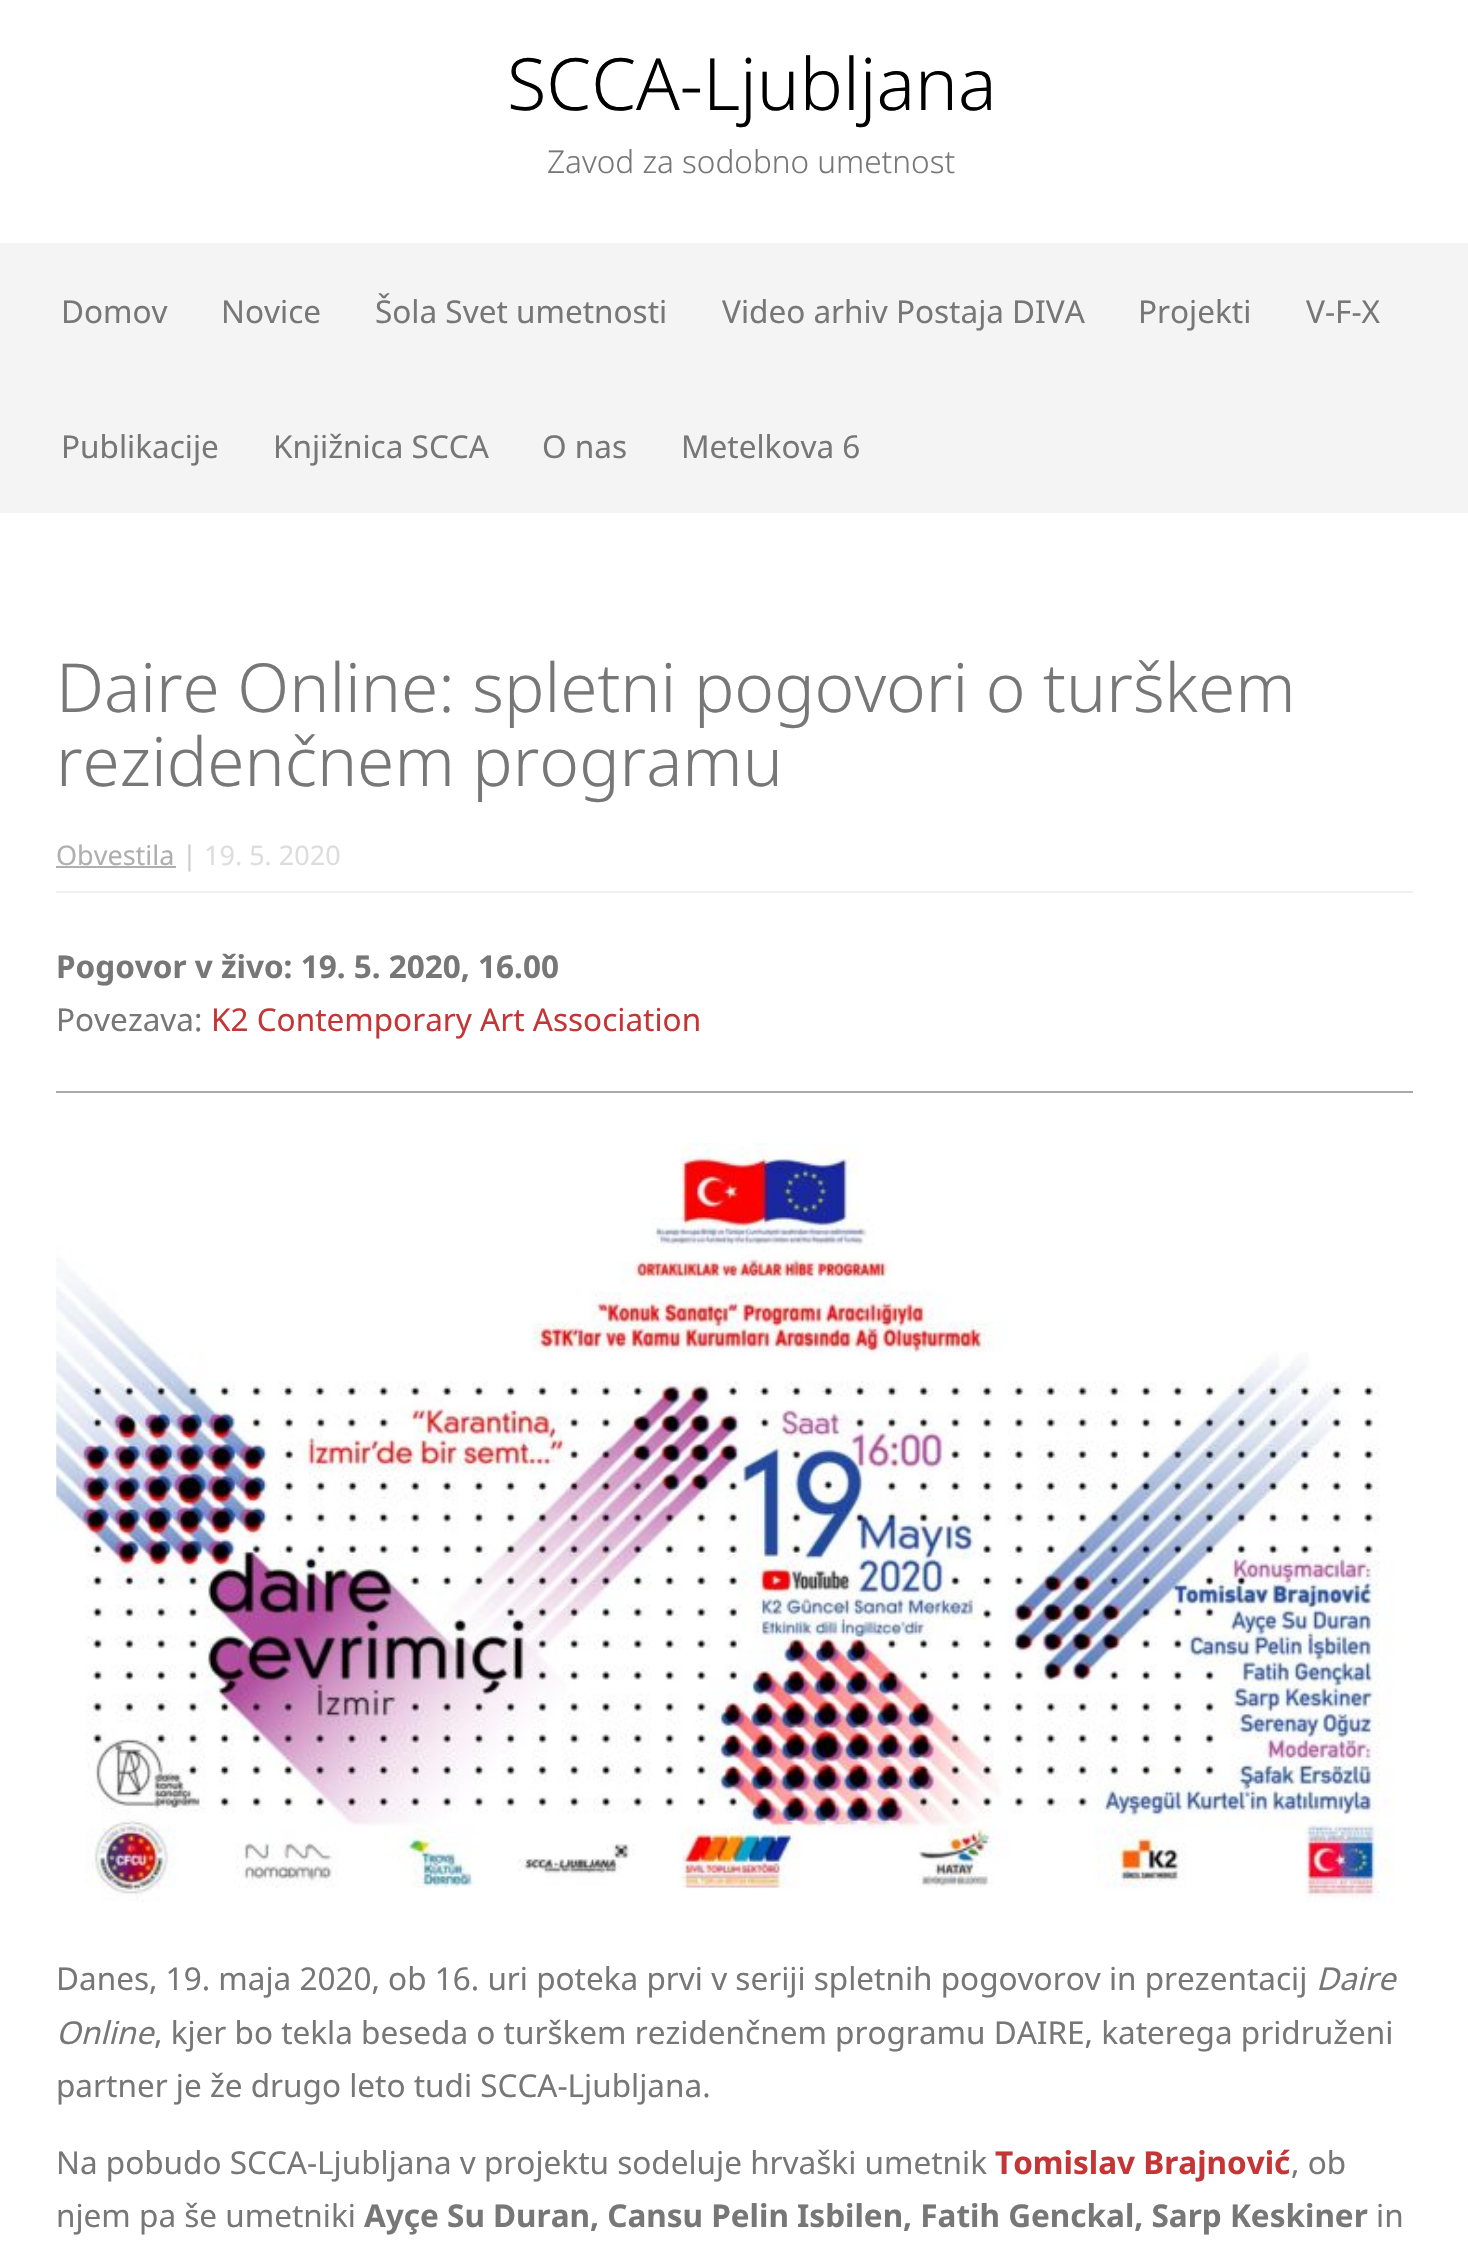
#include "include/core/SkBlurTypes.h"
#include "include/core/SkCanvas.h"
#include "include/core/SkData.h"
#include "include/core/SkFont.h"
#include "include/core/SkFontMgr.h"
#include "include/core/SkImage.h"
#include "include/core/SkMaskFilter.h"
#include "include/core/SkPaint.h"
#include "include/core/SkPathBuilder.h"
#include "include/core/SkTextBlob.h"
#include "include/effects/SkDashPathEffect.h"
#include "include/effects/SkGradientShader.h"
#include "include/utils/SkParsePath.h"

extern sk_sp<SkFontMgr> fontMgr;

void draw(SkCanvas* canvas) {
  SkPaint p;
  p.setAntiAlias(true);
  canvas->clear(SK_ColorWHITE);
  p.setColor(SkColorSetRGB(244, 244, 244));
  canvas->drawRect(SkRect::MakeLTRB(0, 243, 1468, 513), p);
  p.setColor(SkColorSetRGB(240, 240, 240));
  canvas->drawRect(SkRect::MakeLTRB(56, 891, 1413, 893), p);
  p.setColor(SkColorSetRGB(175, 175, 175));
  canvas->drawRect(SkRect::MakeLTRB(56, 866, 176, 868), p);
  p.setColor(SkColorSetRGB(170, 170, 170));
  canvas->drawRect(SkRect::MakeLTRB(56, 1091, 1413, 1093), p);
  canvas->drawImageRect(SkImages::DeferredFromEncodedData(SkData::MakeFromFileName("images/1.png")), SkRect::MakeLTRB(56, 1143, 1395, 1903), SkSamplingOptions());
  SkFont font1(fontMgr->matchFamilyStyle("Noto Sans", SkFontStyle(300, SkFontStyle::kNormal_Width, SkFontStyle::kUpright_Slant)), 72);
  font1.setSubpixel(true);
  p.setColor(SK_ColorBLACK);
  canvas->drawString("SCCA-Ljubljana", 507, 110, font1, p);
  SkFont font2(fontMgr->matchFamilyStyle("Noto Sans", SkFontStyle(300, SkFontStyle::kNormal_Width, SkFontStyle::kUpright_Slant)), 31.5f);
  font2.setSubpixel(true);
  p.setColor(SkColorSetRGB(119, 119, 119));
  canvas->drawString("Zavod za sodobno umetnost", 547, 173, font2, p);
  SkFont font3(fontMgr->matchFamilyStyle("Noto Sans", SkFontStyle::Normal()), 31.5f);
  font3.setSubpixel(true);
  canvas->drawString("Domov", 61, 323, font3, p);
  canvas->drawString("Novice", 221, 323, font3, p);
  canvas->drawString("Šola Svet umetnosti", 375, 323, font3, p);
  canvas->drawString("Video arhiv Postaja DIVA", 722, 323, font3, p);
  canvas->drawString("Projekti", 1138, 323, font3, p);
  canvas->drawString("V-F-X", 1306, 323, font3, p);
  canvas->drawString("Publikacije", 61, 458, font3, p);
  canvas->drawString("Knjižnica SCCA", 273, 458, font3, p);
  canvas->drawString("O nas", 542, 458, font3, p);
  canvas->drawString("Metelkova 6", 681, 458, font3, p);
  SkFont font4(fontMgr->matchFamilyStyle("Noto Sans", SkFontStyle(300, SkFontStyle::kNormal_Width, SkFontStyle::kUpright_Slant)), 67.5f);
  font4.setSubpixel(true);
  canvas->drawString("Daire Online: spletni pogovori o turškem", 56, 712, font4, p);
  canvas->drawString("rezidenčnem programu", 56, 786, font4, p);
  SkFont font5(fontMgr->matchFamilyStyle("Noto Sans", SkFontStyle::Normal()), 27);
  font5.setSubpixel(true);
  p.setColor(SkColorSetRGB(175, 175, 175));
  canvas->drawString("Obvestila", 56, 865, font5, p);
  p.setColor(SkColorSetRGB(204, 204, 204));
  canvas->drawString("|", 182, 865, font5, p);
  p.setColor(SkColorSetRGB(221, 221, 221));
  canvas->drawString("19. 5. 2020", 204, 865, font5, p);
  SkFont font6(fontMgr->matchFamilyStyle("Noto Sans", SkFontStyle::Bold()), 31.5f);
  font6.setSubpixel(true);
  p.setColor(SkColorSetRGB(119, 119, 119));
  canvas->drawString("Pogovor v živo: 19. 5. 2020, 16.00", 56, 978, font6, p);
  canvas->drawString("Povezava:", 56, 1031, font3, p);
  p.setColor(SkColorSetRGB(196, 54, 54));
  canvas->drawString("K2 Contemporary Art Association", 211, 1031, font3, p);
  p.setColor(SkColorSetRGB(119, 119, 119));
  canvas->drawString("Danes, 19. maja 2020, ob 16. uri poteka prvi v seriji spletnih pogovorov in prezentacij", 56, 1990, font3, p);
  SkFont font7(fontMgr->matchFamilyStyle("Noto Sans", SkFontStyle::Italic()), 31.5f);
  font7.setSubpixel(true);
  canvas->drawString("Daire", 1316, 1990, font7, p);
  canvas->drawString("Online", 56, 2044, font7, p);
  canvas->drawString(", kjer bo tekla beseda o turškem rezidenčnem programu DAIRE, katerega pridruženi", 154, 2044, font3, p);
  canvas->drawString("partner je že drugo leto tudi SCCA-Ljubljana.", 56, 2097, font3, p);
  canvas->drawString("Na pobudo SCCA-Ljubljana v projektu sodeluje hrvaški umetnik", 56, 2174, font3, p);
  p.setColor(SkColorSetRGB(196, 54, 54));
  canvas->drawString("Tomislav Brajnović", 995, 2174, font6, p);
  p.setColor(SkColorSetRGB(119, 119, 119));
  canvas->drawString(", ob", 1291, 2174, font3, p);
  canvas->drawString("njem pa še umetniki", 56, 2227, font3, p);
  canvas->drawString("Ayçe Su Duran, Cansu Pelin Isbilen, Fatih Genckal, Sarp Keskiner", 364, 2227, font6, p);
  canvas->drawString("in", 1376, 2227, font3, p);
}
